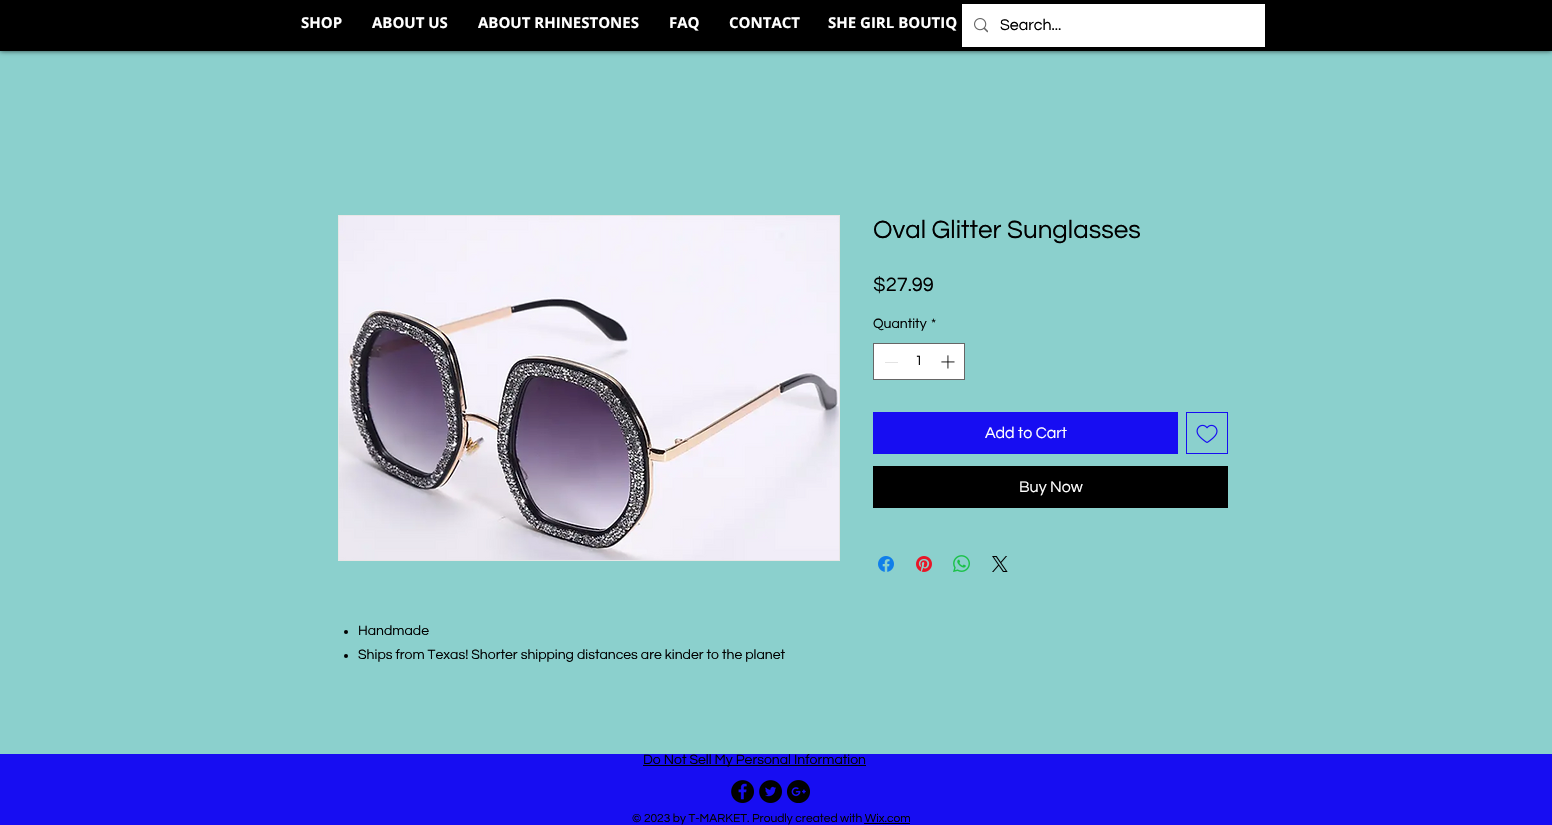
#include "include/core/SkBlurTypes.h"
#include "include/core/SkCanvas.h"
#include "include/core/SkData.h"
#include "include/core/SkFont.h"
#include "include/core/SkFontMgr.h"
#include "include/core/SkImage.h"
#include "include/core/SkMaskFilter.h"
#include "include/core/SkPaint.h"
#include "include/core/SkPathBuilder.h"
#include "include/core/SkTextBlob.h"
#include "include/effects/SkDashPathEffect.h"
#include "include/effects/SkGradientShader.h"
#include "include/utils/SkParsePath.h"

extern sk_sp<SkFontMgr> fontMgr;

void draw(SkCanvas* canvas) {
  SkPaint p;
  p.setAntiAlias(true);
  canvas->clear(SkColorSetRGB(139, 208, 205));
  p.setColor(SkColorSetARGB(179, 0, 0, 0));
  p.setMaskFilter(SkMaskFilter::MakeBlur(kNormal_SkBlurStyle, 2.5f));
  canvas->drawRect(SkRect::MakeLTRB(0, 0, 1552, 51), p);
  p.setMaskFilter(nullptr);
  p.setColor(SK_ColorBLACK);
  canvas->drawRect(SkRect::MakeLTRB(0, 0, 1552, 51), p);
  p.setColor(SK_ColorWHITE);
  canvas->drawRect(SkRect::MakeLTRB(962, 4, 1265, 47), p);
  canvas->drawImageRect(SkImages::DeferredFromEncodedData(SkData::MakeFromFileName("images/1.png")), SkRect::MakeLTRB(974, 18, 988, 33), SkSamplingOptions());
  canvas->drawRect(SkRect::MakeLTRB(873.5f, 343.5f, 964.5f, 379.5f), p);
  p.setStyle(SkPaint::kStroke_Style);
  p.setStrokeWidth(1);
  p.setColor(SkColorSetRGB(102, 102, 102));
  canvas->drawRect(SkRect::MakeLTRB(873.5f, 343.5f, 964.5f, 379.5f), p);
  p.setStyle(SkPaint::kFill_Style);
  p.setColor(SkColorSetRGB(227, 227, 227));
  canvas->drawRect(SkRect::MakeLTRB(885, 362, 898, 363), p);
  canvas->drawImageRect(SkImages::DeferredFromEncodedData(SkData::MakeFromFileName("images/2.png")), SkRect::MakeLTRB(941, 355, 955, 369), SkSamplingOptions());
  p.setColor(SkColorSetRGB(23, 13, 242));
  canvas->drawRect(SkRect::MakeLTRB(873, 412, 1178, 454), p);
  p.setStyle(SkPaint::kStroke_Style);
  canvas->drawRect(SkRect::MakeLTRB(1186.5f, 412.5f, 1227.5f, 453.5f), p);
  canvas->drawImageRect(SkImages::DeferredFromEncodedData(SkData::MakeFromFileName("images/3.png")), SkRect::MakeLTRB(1196, 424, 1218, 443), SkSamplingOptions());
  p.setStyle(SkPaint::kFill_Style);
  p.setColor(SK_ColorBLACK);
  canvas->drawRect(SkRect::MakeLTRB(873, 466, 1228, 508), p);
  canvas->drawImageRect(SkImages::DeferredFromEncodedData(SkData::MakeFromFileName("images/4.png")), SkRect::MakeLTRB(878, 556, 894, 572), SkSamplingOptions());
  canvas->drawImageRect(SkImages::DeferredFromEncodedData(SkData::MakeFromFileName("images/5.png")), SkRect::MakeLTRB(916, 556, 932, 572), SkSamplingOptions());
  canvas->drawImageRect(SkImages::DeferredFromEncodedData(SkData::MakeFromFileName("images/6.png")), SkRect::MakeLTRB(953, 555, 970, 572), SkSamplingOptions());
  canvas->drawImageRect(SkImages::DeferredFromEncodedData(SkData::MakeFromFileName("images/7.png")), SkRect::MakeLTRB(992, 556, 1008, 572), SkSamplingOptions());
  p.setStyle(SkPaint::kStroke_Style);
  p.setColor(SkColorSetRGB(232, 230, 230));
  canvas->drawRect(SkRect::MakeLTRB(338.5f, 215.5f, 839.5f, 560.5f), p);
  canvas->drawImageRect(SkImages::DeferredFromEncodedData(SkData::MakeFromFileName("images/8.png")), SkRect::MakeLTRB(339, 216, 839, 560), SkSamplingOptions());
  p.setStyle(SkPaint::kFill_Style);
  p.setColor(SK_ColorBLACK);
  canvas->drawCircle(346, 632, 2, p);
  canvas->drawCircle(346, 656, 2, p);
  p.setColor(SkColorSetRGB(23, 13, 242));
  canvas->drawRect(SkRect::MakeLTRB(0, 754, 1552, 825), p);
  p.setColor(SK_ColorBLACK);
  canvas->drawRect(SkRect::MakeLTRB(643, 765, 866, 766), p);
  canvas->drawImageRect(SkImages::DeferredFromEncodedData(SkData::MakeFromFileName("images/9.png")), SkRect::MakeLTRB(731, 780, 754, 803), SkSamplingOptions());
  canvas->drawImageRect(SkImages::DeferredFromEncodedData(SkData::MakeFromFileName("images/10.png")), SkRect::MakeLTRB(759, 780, 782, 803), SkSamplingOptions());
  canvas->drawImageRect(SkImages::DeferredFromEncodedData(SkData::MakeFromFileName("images/11.png")), SkRect::MakeLTRB(787, 780, 810, 803), SkSamplingOptions());
  canvas->drawRect(SkRect::MakeLTRB(864, 823, 910, 824), p);
  SkFont font1(fontMgr->matchFamilyStyle("Open Sans", SkFontStyle::Bold()), 15);
  font1.setSubpixel(true);
  p.setColor(SK_ColorWHITE);
  canvas->drawString("SHOP", 301, 28, font1, p);
  canvas->drawString("ABOUT US", 372, 28, font1, p);
  canvas->drawString("ABOUT RHINESTONES", 478, 28, font1, p);
  canvas->drawString("FAQ", 669, 28, font1, p);
  canvas->drawString("CONTACT", 729, 28, font1, p);
  canvas->drawString("SHE GIRL BOUTIQ", 828, 28, font1, p);
  SkFont font2(fontMgr->matchFamilyStyle("Questrial", SkFontStyle::Normal()), 16);
  font2.setSubpixel(true);
  p.setColor(SK_ColorBLACK);
  canvas->drawString("Search...", 1000, 30, font2, p);
  SkFont font3(fontMgr->matchFamilyStyle("Questrial", SkFontStyle::Normal()), 26);
  font3.setSubpixel(true);
  canvas->drawString("Oval Glitter Sunglasses", 873, 238, font3, p);
  SkFont font4(fontMgr->matchFamilyStyle("Questrial", SkFontStyle::Normal()), 20);
  font4.setSubpixel(true);
  canvas->drawString("$27.99", 873, 291, font4, p);
  SkFont font5(fontMgr->matchFamilyStyle("Questrial", SkFontStyle::Normal()), 14);
  font5.setSubpixel(true);
  canvas->drawString("Quantity", 873, 328, font5, p);
  canvas->drawString("*", 931, 328, font5, p);
  canvas->drawString("1", 915, 365, font5, p);
  p.setColor(SK_ColorWHITE);
  canvas->drawString("Add to Cart", 985, 438, font2, p);
  canvas->drawString("Buy Now", 1019, 492, font2, p);
  p.setColor(SK_ColorBLACK);
  canvas->drawString("Handmade", 358, 635, font5, p);
  canvas->drawString("Ships from Texas! Shorter shipping distances are kinder to the planet", 358, 659, font5, p);
  canvas->drawString("Do Not Sell My Personal Information", 643, 764, font5, p);
  SkFont font6(fontMgr->matchFamilyStyle("Questrial", SkFontStyle::Normal()), 12);
  font6.setSubpixel(true);
  canvas->drawString("© 2023 by T-MARKET. Proudly created with Wix.com", 632, 822, font6, p);
}
